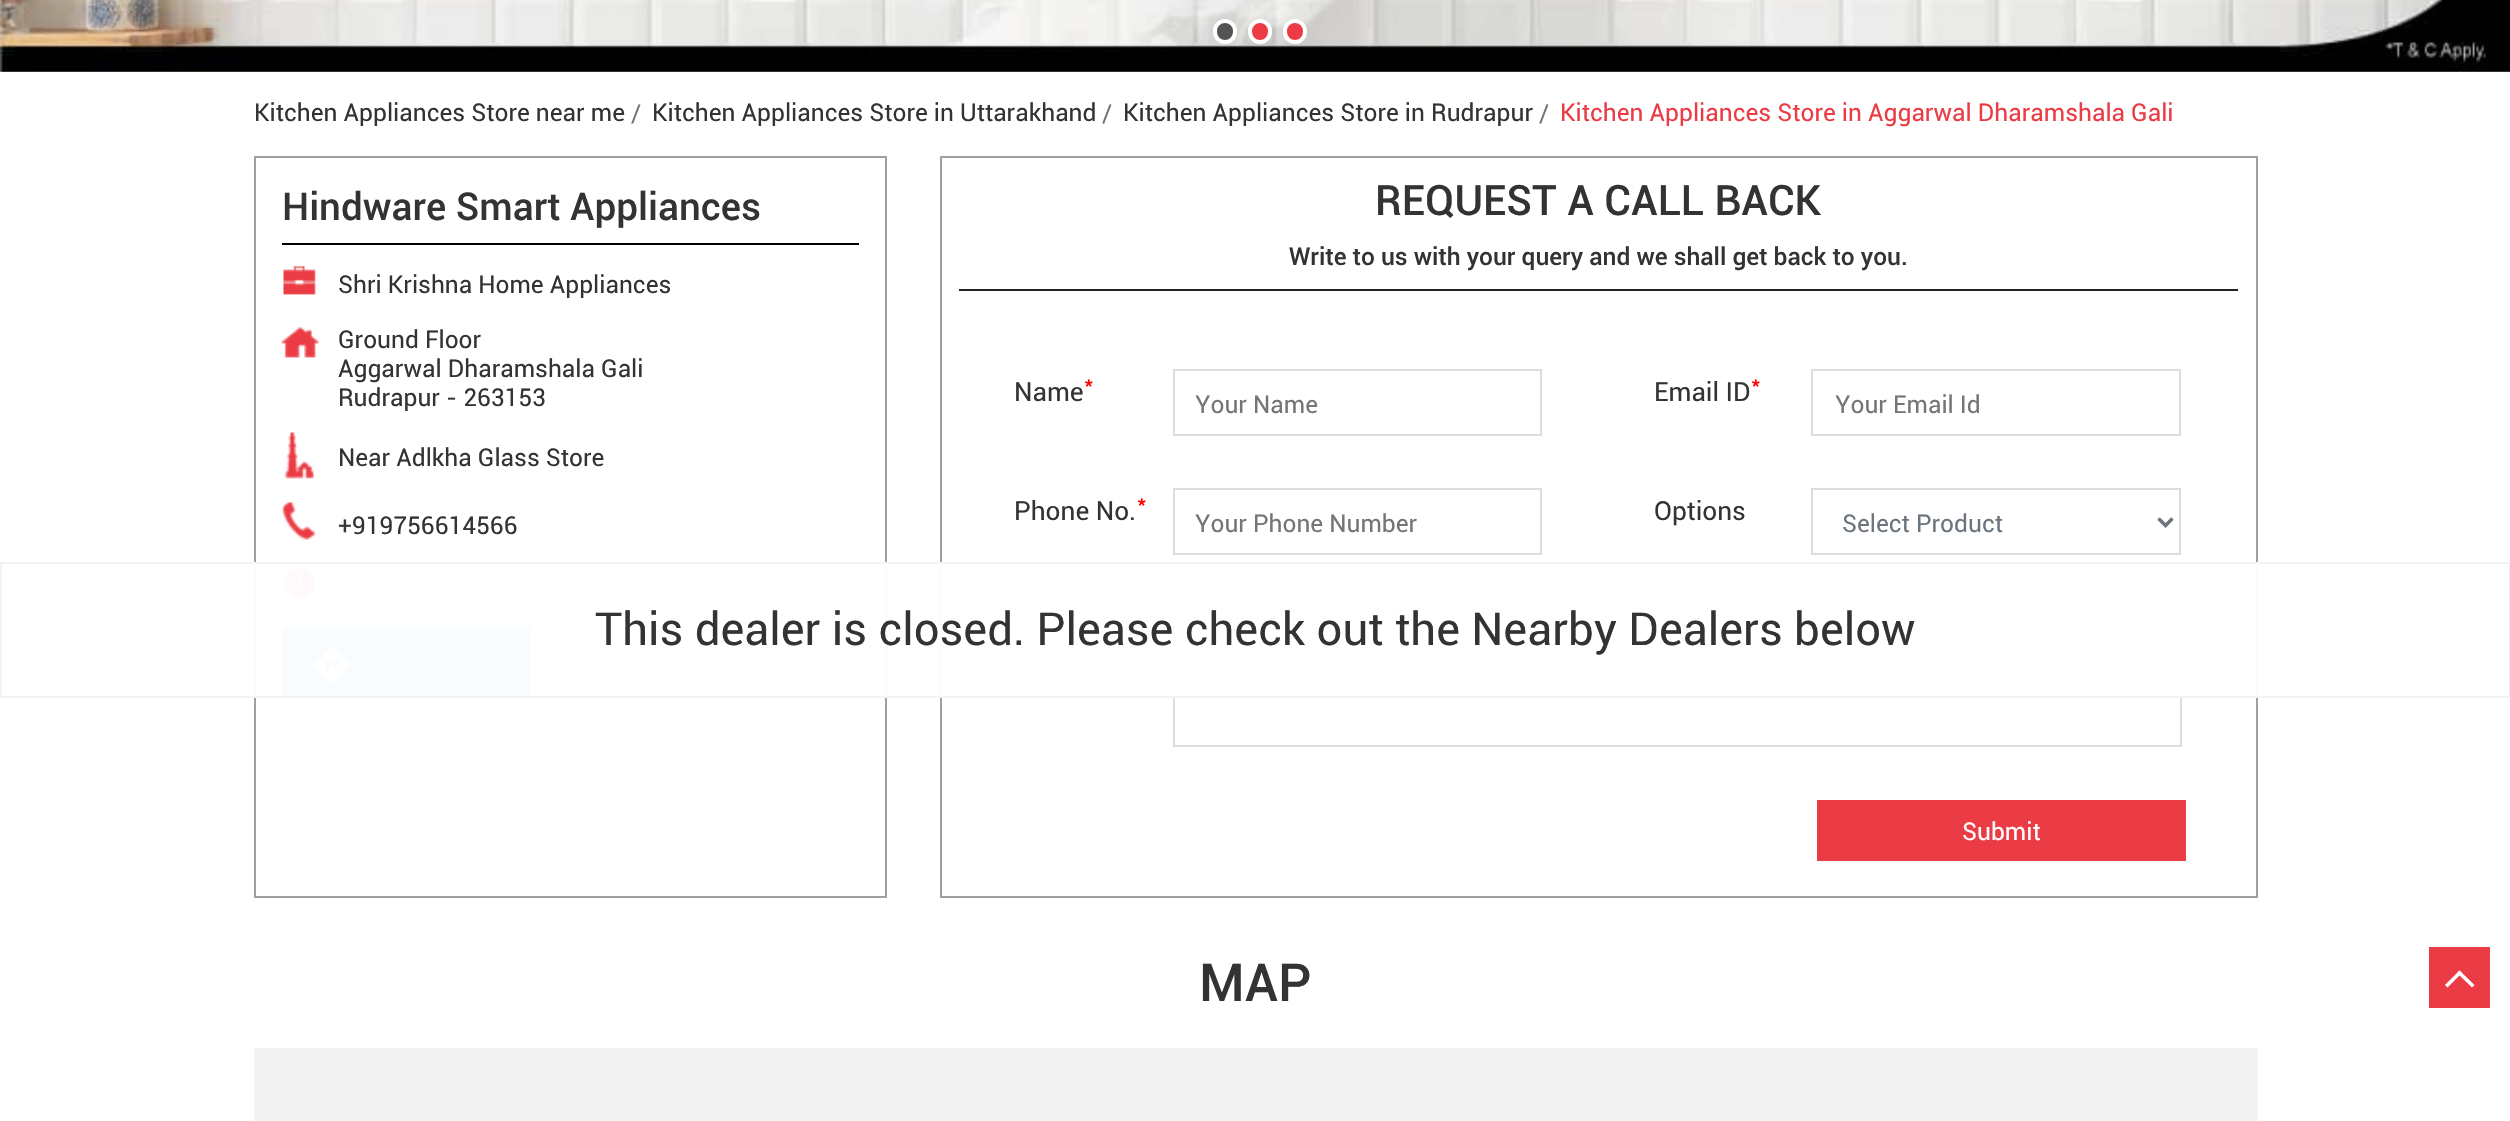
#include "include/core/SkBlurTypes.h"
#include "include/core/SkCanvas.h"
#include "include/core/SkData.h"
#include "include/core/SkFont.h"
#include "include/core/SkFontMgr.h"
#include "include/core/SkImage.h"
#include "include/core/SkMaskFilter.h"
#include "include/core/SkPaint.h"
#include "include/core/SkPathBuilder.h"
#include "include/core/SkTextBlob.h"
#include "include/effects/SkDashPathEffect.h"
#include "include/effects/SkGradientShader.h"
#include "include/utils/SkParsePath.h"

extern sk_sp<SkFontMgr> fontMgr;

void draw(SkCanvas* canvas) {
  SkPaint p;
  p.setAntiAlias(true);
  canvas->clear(SK_ColorWHITE);
  canvas->drawImageRect(SkImages::DeferredFromEncodedData(SkData::MakeFromFileName("images/2.png")), SkRect::MakeLTRB(0, 71, 1, 72), SkSamplingOptions());
  canvas->drawImageRect(SkImages::DeferredFromEncodedData(SkData::MakeFromFileName("images/1.png")), SkRect::MakeLTRB(0, 0, 2510, 72), SkSamplingOptions());
  p.setColor(SkColorSetRGB(84, 84, 84));
  canvas->drawRoundRect(SkRect::MakeLTRB(1215, 21, 1235, 42), 10, 10, p);
  p.setStyle(SkPaint::kStroke_Style);
  p.setStrokeWidth(4);
  p.setColor(SK_ColorWHITE);
  canvas->drawRoundRect(SkRect::MakeLTRB(1215, 21, 1235, 42), 10, 10, p);
  p.setStyle(SkPaint::kFill_Style);
  p.setColor(SkColorSetRGB(235, 60, 69));
  canvas->drawRoundRect(SkRect::MakeLTRB(1250, 21, 1270, 42), 10, 10, p);
  p.setStyle(SkPaint::kStroke_Style);
  p.setColor(SK_ColorWHITE);
  canvas->drawRoundRect(SkRect::MakeLTRB(1250, 21, 1270, 42), 10, 10, p);
  p.setStyle(SkPaint::kFill_Style);
  p.setColor(SkColorSetRGB(235, 60, 69));
  canvas->drawRoundRect(SkRect::MakeLTRB(1285, 21, 1305, 42), 10, 10, p);
  p.setStyle(SkPaint::kStroke_Style);
  p.setColor(SK_ColorWHITE);
  canvas->drawRoundRect(SkRect::MakeLTRB(1285, 21, 1305, 42), 10, 10, p);
  p.setStrokeWidth(2);
  p.setColor(SkColorSetRGB(160, 160, 160));
  canvas->drawRect(SkRect::MakeLTRB(255, 157, 886, 897), p);
  p.setStyle(SkPaint::kFill_Style);
  p.setColor(SK_ColorBLACK);
  canvas->drawRect(SkRect::MakeLTRB(282, 243, 859, 245), p);
  canvas->drawImageRect(SkImages::DeferredFromEncodedData(SkData::MakeFromFileName("images/3.png")), SkRect::MakeLTRB(283, 265, 316, 295), SkSamplingOptions());
  canvas->drawImageRect(SkImages::DeferredFromEncodedData(SkData::MakeFromFileName("images/4.png")), SkRect::MakeLTRB(281, 327, 319, 358), SkSamplingOptions());
  canvas->drawImageRect(SkImages::DeferredFromEncodedData(SkData::MakeFromFileName("images/5.png")), SkRect::MakeLTRB(284, 432, 314, 479), SkSamplingOptions());
  canvas->drawImageRect(SkImages::DeferredFromEncodedData(SkData::MakeFromFileName("images/6.png")), SkRect::MakeLTRB(281, 502, 316, 540), SkSamplingOptions());
  canvas->drawImageRect(SkImages::DeferredFromEncodedData(SkData::MakeFromFileName("images/7.png")), SkRect::MakeLTRB(283, 566, 316, 600), SkSamplingOptions());
  p.setColor(SkColorSetRGB(25, 133, 242));
  canvas->drawRect(SkRect::MakeLTRB(282, 628, 530, 696), p);
  canvas->drawImageRect(SkImages::DeferredFromEncodedData(SkData::MakeFromFileName("images/8.png")), SkRect::MakeLTRB(312, 645, 351, 684), SkSamplingOptions());
  p.setStyle(SkPaint::kStroke_Style);
  p.setColor(SkColorSetRGB(160, 160, 160));
  canvas->drawRect(SkRect::MakeLTRB(941, 157, 2257, 897), p);
  p.setStyle(SkPaint::kFill_Style);
  p.setColor(SkColorSetRGB(34, 34, 34));
  canvas->drawRect(SkRect::MakeLTRB(959, 289, 2238, 291), p);
  p.setStyle(SkPaint::kStroke_Style);
  p.setColor(SkColorSetRGB(222, 221, 221));
  canvas->drawRect(SkRect::MakeLTRB(1174, 370, 1541, 435), p);
  canvas->drawRect(SkRect::MakeLTRB(1174, 489, 1541, 554), p);
  canvas->drawRect(SkRect::MakeLTRB(1812, 370, 2180, 435), p);
  canvas->drawRect(SkRect::MakeLTRB(1812, 489, 2180, 554), p);
  p.setStrokeWidth(3.5f);
  p.setColor(SkColorSetRGB(108, 117, 125));
  canvas->drawPath(SkPathBuilder().moveTo(2158.5f, 518.5f).lineTo(2165.5f, 525.5f).lineTo(2172.5f, 518.5f).detach(), p);
  p.setStrokeWidth(2);
  p.setColor(SkColorSetRGB(222, 221, 221));
  canvas->drawRect(SkRect::MakeLTRB(1174, 608, 2181, 746), p);
  p.setStyle(SkPaint::kFill_Style);
  p.setColor(SkColorSetRGB(235, 60, 69));
  canvas->drawRect(SkRect::MakeLTRB(1817, 800, 2186, 861), p);
  p.setColor(SkColorSetARGB(247, 255, 255, 255));
  canvas->drawRect(SkRect::MakeLTRB(254, 564, 2258, 696), p);
  p.setStyle(SkPaint::kStroke_Style);
  p.setColor(SkColorSetRGB(243, 243, 243));
  canvas->drawRect(SkRect::MakeLTRB(1, 563, 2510, 697), p);
  p.setStyle(SkPaint::kFill_Style);
  canvas->drawRect(SkRect::MakeLTRB(254, 1048, 2258, 1121), p);
  p.setColor(SkColorSetRGB(235, 60, 69));
  canvas->drawRect(SkRect::MakeLTRB(2429, 947, 2490, 1008), p);
  p.setColor(SK_ColorWHITE);
  canvas->drawPath(SkPathBuilder().moveTo(2447.5f, 987.5f).lineTo(2445, 985).lineTo(2459.5f, 970.5f).lineTo(2462, 973).close().detach(), p);
  canvas->drawPath(SkPathBuilder().moveTo(2472, 987.5f).lineTo(2457, 973).lineTo(2459.5f, 970.5f).lineTo(2474.5f, 985).close().detach(), p);
  SkFont font1(fontMgr->matchFamilyStyle("Roboto", SkFontStyle::Normal()), 24.5f);
  font1.setSubpixel(true);
  p.setColor(SkColorSetRGB(51, 51, 51));
  canvas->drawString("Kitchen Appliances Store near me", 254, 121, font1, p);
  p.setColor(SkColorSetRGB(108, 117, 125));
  canvas->drawString("/", 631, 122, font1, p);
  p.setColor(SkColorSetRGB(51, 51, 51));
  canvas->drawString("Kitchen Appliances Store in Uttarakhand", 652, 121, font1, p);
  p.setColor(SkColorSetRGB(108, 117, 125));
  canvas->drawString("/", 1102, 122, font1, p);
  p.setColor(SkColorSetRGB(51, 51, 51));
  canvas->drawString("Kitchen Appliances Store in Rudrapur", 1123, 121, font1, p);
  p.setColor(SkColorSetRGB(108, 117, 125));
  canvas->drawString("/", 1539, 122, font1, p);
  p.setColor(SkColorSetRGB(235, 60, 69));
  canvas->drawString("Kitchen Appliances Store in Aggarwal Dharamshala Gali", 1560, 121, font1, p);
  SkFont font2(fontMgr->matchFamilyStyle("Roboto", SkFontStyle(500, SkFontStyle::kNormal_Width, SkFontStyle::kUpright_Slant)), 38.5f);
  font2.setSubpixel(true);
  p.setColor(SkColorSetRGB(51, 51, 51));
  canvas->drawString("Hindware Smart Appliances", 282, 220, font2, p);
  canvas->drawString("Shri Krishna Home Appliances", 338, 293, font1, p);
  canvas->drawString("Ground Floor", 338, 348, font1, p);
  canvas->drawString("Aggarwal Dharamshala Gali", 338, 377, font1, p);
  canvas->drawString("Rudrapur - 263153", 338, 406, font1, p);
  canvas->drawString("Near Adlkha Glass Store", 338, 466, font1, p);
  canvas->drawString("+919756614566", 338, 534, font1, p);
  SkFont font3(fontMgr->matchFamilyStyle("Roboto", SkFontStyle(500, SkFontStyle::kNormal_Width, SkFontStyle::kUpright_Slant)), 42);
  font3.setSubpixel(true);
  canvas->drawString("REQUEST A CALL BACK", 1375, 215, font3, p);
  SkFont font4(fontMgr->matchFamilyStyle("Roboto", SkFontStyle(500, SkFontStyle::kNormal_Width, SkFontStyle::kUpright_Slant)), 24.5f);
  font4.setSubpixel(true);
  canvas->drawString("Write to us with your query and we shall get back to you.", 1289, 265, font4, p);
  SkFont font5(fontMgr->matchFamilyStyle("Roboto", SkFontStyle::Normal()), 26.25f);
  font5.setSubpixel(true);
  canvas->drawString("Name", 1014, 401, font5, p);
  SkFont font6(fontMgr->matchFamilyStyle("Roboto", SkFontStyle::Normal()), 22);
  font6.setSubpixel(true);
  p.setColor(SkColorSetRGB(255, 0, 0));
  canvas->drawString("*", 1084, 391, font6, p);
  p.setColor(SkColorSetRGB(117, 117, 117));
  canvas->drawString("Your Name", 1195, 413, font1, p);
  p.setColor(SkColorSetRGB(51, 51, 51));
  canvas->drawString("Phone No.", 1014, 520, font5, p);
  p.setColor(SkColorSetRGB(255, 0, 0));
  canvas->drawString("*", 1137, 510, font6, p);
  p.setColor(SkColorSetRGB(117, 117, 117));
  canvas->drawString("Your Phone Number", 1195, 532, font1, p);
  p.setColor(SkColorSetRGB(51, 51, 51));
  canvas->drawString("Email ID", 1654, 401, font5, p);
  p.setColor(SkColorSetRGB(255, 0, 0));
  canvas->drawString("*", 1751, 391, font6, p);
  p.setColor(SkColorSetRGB(117, 117, 117));
  canvas->drawString("Your Email Id", 1835, 413, font1, p);
  p.setColor(SkColorSetRGB(51, 51, 51));
  canvas->drawString("Options", 1654, 520, font5, p);
  p.setColor(SkColorSetRGB(108, 117, 125));
  canvas->drawString("Select Product", 1842, 532, font1, p);
  p.setColor(SK_ColorWHITE);
  canvas->drawString("Submit", 1962, 840, font1, p);
  SkFont font7(fontMgr->matchFamilyStyle("Roboto", SkFontStyle::Normal()), 45.5f);
  font7.setSubpixel(true);
  p.setColor(SkColorSetRGB(51, 51, 51));
  canvas->drawString("This dealer is closed. Please check out the Nearby Dealers below", 595, 645, font7, p);
  SkFont font8(fontMgr->matchFamilyStyle("Roboto", SkFontStyle(500, SkFontStyle::kNormal_Width, SkFontStyle::kUpright_Slant)), 52.5f);
  font8.setSubpixel(true);
  canvas->drawString("MAP", 1199, 1001, font8, p);
}
